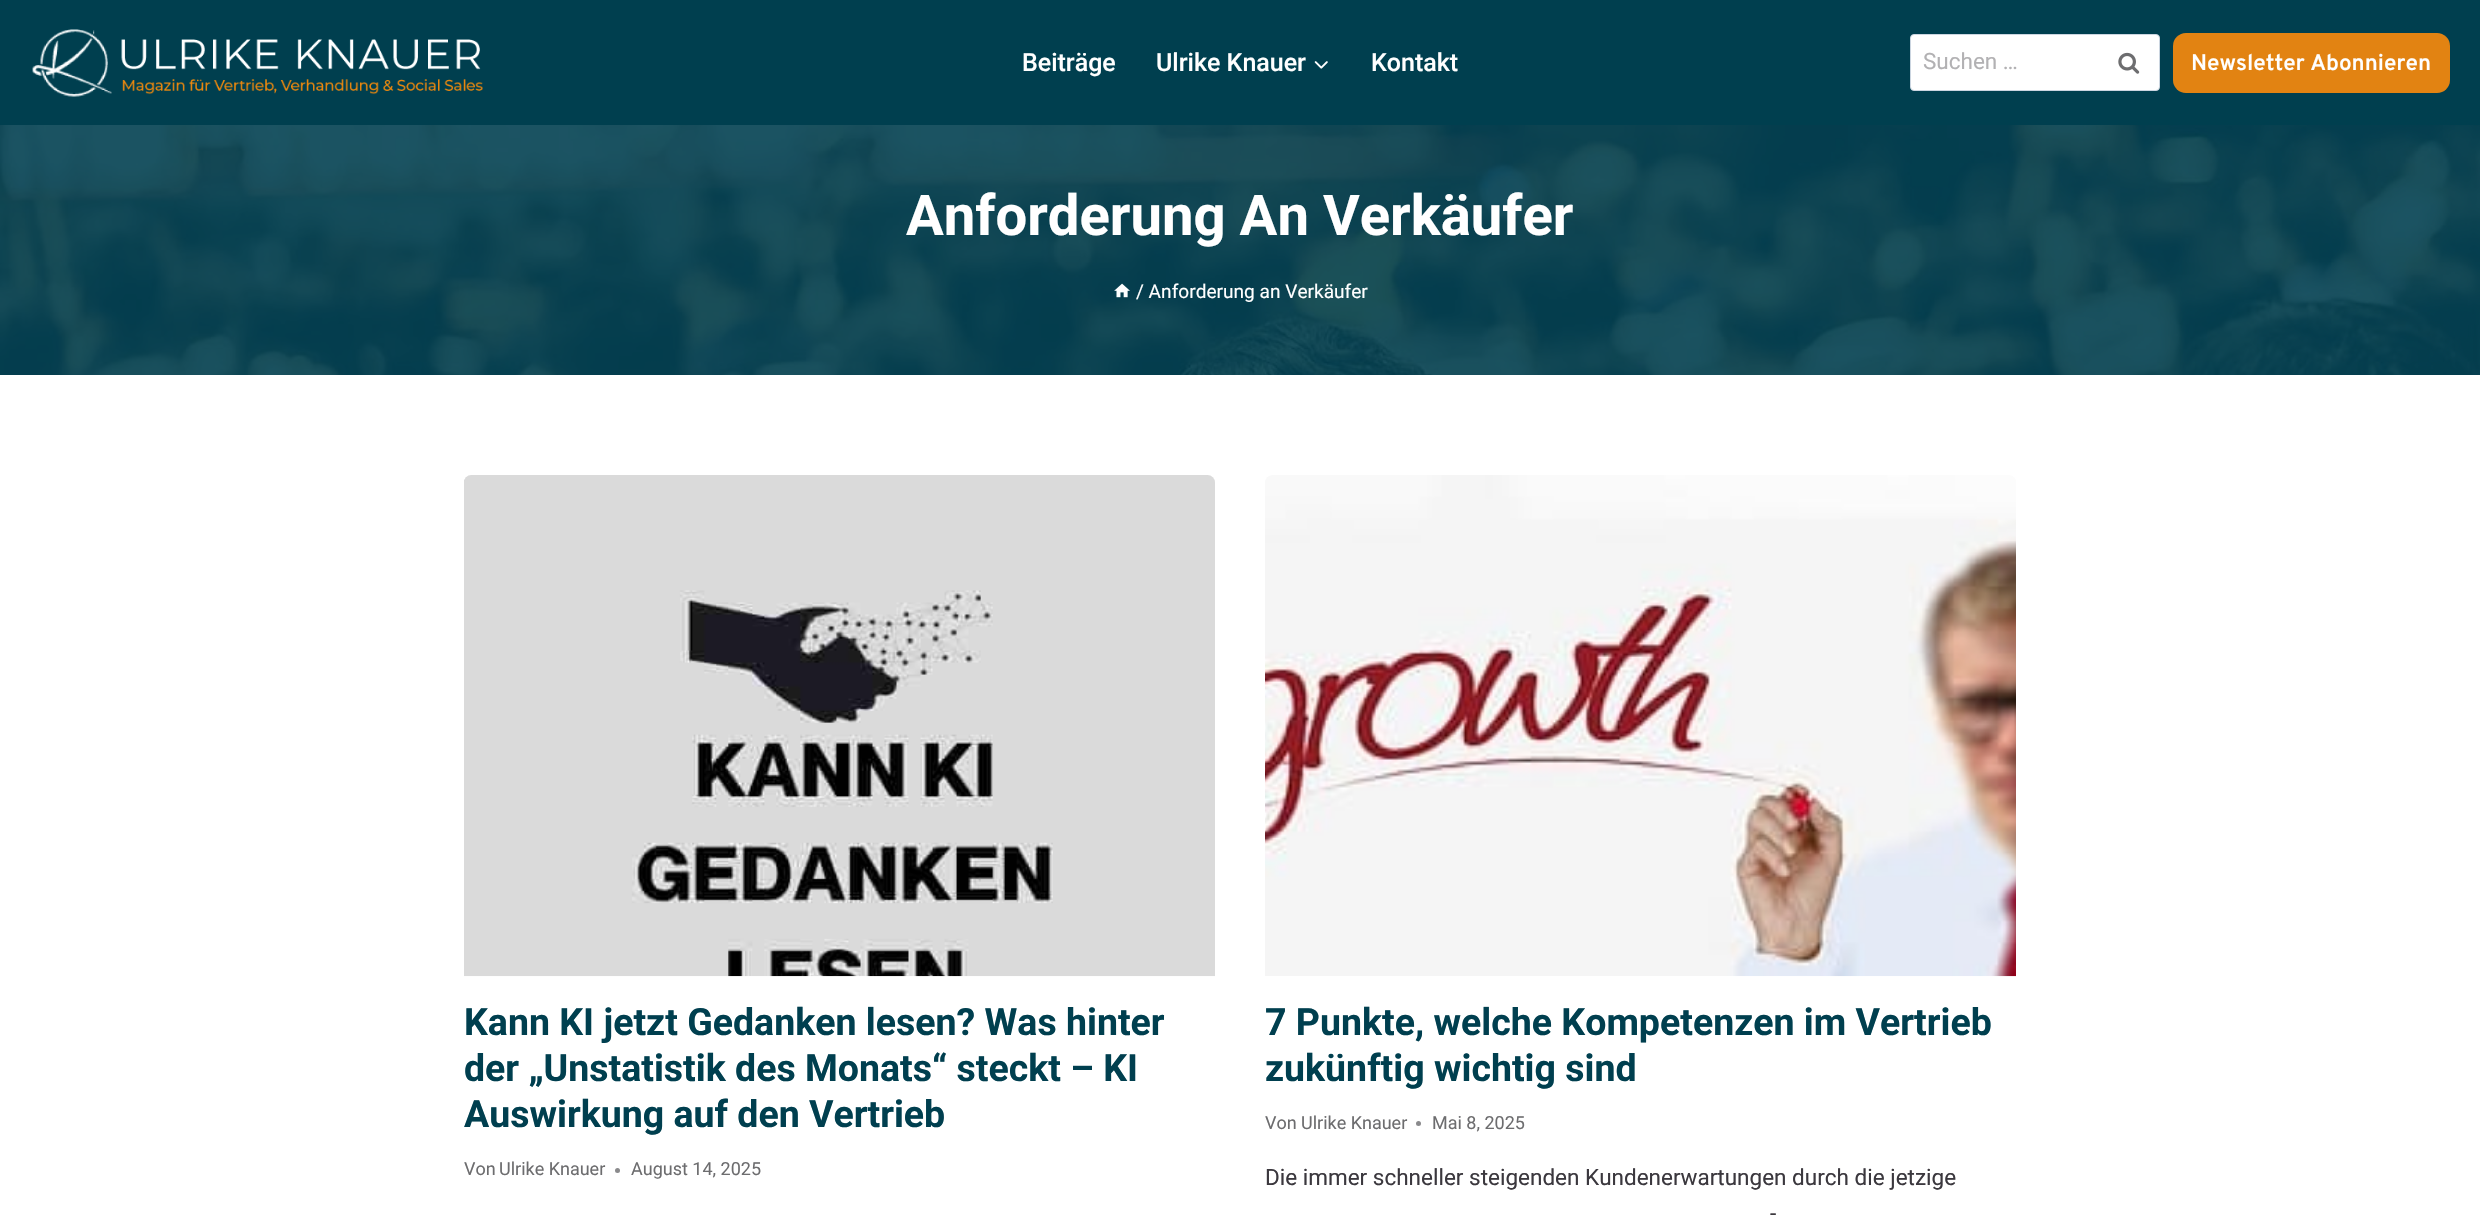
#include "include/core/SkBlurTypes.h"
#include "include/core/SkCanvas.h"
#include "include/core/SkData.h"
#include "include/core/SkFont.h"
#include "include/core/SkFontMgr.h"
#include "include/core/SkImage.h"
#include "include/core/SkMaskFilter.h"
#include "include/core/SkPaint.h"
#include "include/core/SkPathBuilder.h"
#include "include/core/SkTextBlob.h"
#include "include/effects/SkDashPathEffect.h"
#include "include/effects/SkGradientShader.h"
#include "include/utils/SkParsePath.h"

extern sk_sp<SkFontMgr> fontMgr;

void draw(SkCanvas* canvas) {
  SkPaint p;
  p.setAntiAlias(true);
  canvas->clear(SK_ColorWHITE);
  p.setColor(SkColorSetRGB(0, 63, 79));
  canvas->drawRect(SkRect::MakeLTRB(0, 0, 2480, 125), p);
  canvas->drawImageRect(SkImages::DeferredFromEncodedData(SkData::MakeFromFileName("images/1.png")), SkRect::MakeLTRB(32, 29, 483, 97), SkSamplingOptions());
  canvas->drawImageRect(SkImages::DeferredFromEncodedData(SkData::MakeFromFileName("images/2.png")), SkRect::MakeLTRB(1314, 61, 1328, 69), SkSamplingOptions());
  p.setColor(SK_ColorWHITE);
  canvas->drawRoundRect(SkRect::MakeLTRB(1910.5f, 34.5f, 2159.5f, 90.5f), 3.5f, 3.5f, p);
  p.setStyle(SkPaint::kStroke_Style);
  p.setStrokeWidth(1);
  p.setColor(SkColorSetRGB(203, 213, 224));
  canvas->drawRoundRect(SkRect::MakeLTRB(1910.5f, 34.5f, 2159.5f, 90.5f), 3.5f, 3.5f, p);
  canvas->drawImageRect(SkImages::DeferredFromEncodedData(SkData::MakeFromFileName("images/3.png")), SkRect::MakeLTRB(2118, 52, 2140, 74), SkSamplingOptions());
  p.setStyle(SkPaint::kFill_Style);
  p.setColor(SkColorSetRGB(226, 131, 18));
  canvas->drawRoundRect(SkRect::MakeLTRB(2173, 33, 2450, 93), 13, 13, p);
  canvas->drawImageRect(SkImages::DeferredFromEncodedData(SkData::MakeFromFileName("images/4.png")), SkRect::MakeLTRB(0, 125, 2480, 375), SkSamplingOptions());
  canvas->drawImageRect(SkImages::DeferredFromEncodedData(SkData::MakeFromFileName("images/5.png")), SkRect::MakeLTRB(1114, 283, 1130, 298), SkSamplingOptions());
  canvas->drawImageRect(SkImages::DeferredFromEncodedData(SkData::MakeFromFileName("images/6.png")), SkRect::MakeLTRB(464, 475, 1215, 977), SkSamplingOptions());
  p.setColor(SkColorSetRGB(138, 138, 140));
  canvas->drawCircle(617.5f, 1170.5f, 2.5f, p);
  canvas->drawImageRect(SkImages::DeferredFromEncodedData(SkData::MakeFromFileName("images/7.png")), SkRect::MakeLTRB(1265, 475, 2016, 977), SkSamplingOptions());
  canvas->drawCircle(1418.5f, 1123.5f, 2.5f, p);
  SkFont font1(fontMgr->matchFamilyStyle("Roboto", SkFontStyle(500, SkFontStyle::kNormal_Width, SkFontStyle::kUpright_Slant)), 25);
  font1.setSubpixel(true);
  p.setColor(SK_ColorWHITE);
  canvas->drawString("Beiträge", 1022, 71, font1, p);
  canvas->drawString("Ulrike Knauer", 1156, 71, font1, p);
  canvas->drawString("Kontakt", 1371, 71, font1, p);
  SkFont font2(fontMgr->matchFamilyStyle("Roboto", SkFontStyle::Normal()), 22.5f);
  font2.setSubpixel(true);
  p.setColor(SkColorSetRGB(178, 177, 179));
  canvas->drawString("Suchen …", 1923, 69, font2, p);
  SkFont font3(fontMgr->matchFamilyStyle("Overpass", SkFontStyle(600, SkFontStyle::kNormal_Width, SkFontStyle::kUpright_Slant)), 22.5f);
  font3.setSubpixel(true);
  p.setColor(SK_ColorWHITE);
  canvas->drawString("Newsletter Abonnieren", 2191, 70, font3, p);
  SkFont font4(fontMgr->matchFamilyStyle("Roboto", SkFontStyle::Bold()), 56.25f);
  font4.setSubpixel(true);
  canvas->drawString("Anforderung An Verkäufer", 906, 235, font4, p);
  SkFont font5(fontMgr->matchFamilyStyle("Roboto", SkFontStyle::Normal()), 19.1f);
  font5.setSubpixel(true);
  canvas->drawString("/ Anforderung an Verkäufer", 1136, 298, font5, p);
  SkFont font6(fontMgr->matchFamilyStyle("Roboto", SkFontStyle::Bold()), 37.5f);
  font6.setSubpixel(true);
  p.setColor(SkColorSetRGB(0, 63, 79));
  canvas->drawString("Kann KI jetzt Gedanken lesen? Was hinter", 464, 1035, font6, p);
  canvas->drawString("der „Unstatistik des Monats“ steckt – KI", 464, 1081, font6, p);
  canvas->drawString("Auswirkung auf den Vertrieb", 464, 1127, font6, p);
  SkFont font7(fontMgr->matchFamilyStyle("Roboto", SkFontStyle::Normal()), 18);
  font7.setSubpixel(true);
  p.setColor(SkColorSetRGB(109, 109, 111));
  canvas->drawString("Von", 464, 1175, font7, p);
  canvas->drawString("Ulrike Knauer", 499, 1175, font7, p);
  canvas->drawString("August 14, 2025", 631, 1175, font7, p);
  p.setColor(SkColorSetRGB(0, 63, 79));
  canvas->drawString("7 Punkte, welche Kompetenzen im Vertrieb", 1265, 1035, font6, p);
  canvas->drawString("zukünftig wichtig sind", 1265, 1081, font6, p);
  p.setColor(SkColorSetRGB(109, 109, 111));
  canvas->drawString("Von", 1265, 1129, font7, p);
  canvas->drawString("Ulrike Knauer", 1301, 1129, font7, p);
  canvas->drawString("Mai 8, 2025", 1432, 1129, font7, p);
  p.setColor(SkColorSetRGB(59, 56, 62));
  canvas->drawString("Die immer schneller steigenden Kundenerwartungen durch die jetzige", 1265, 1185, font2, p);
  canvas->drawString("-", 1770, 1221, font2, p);
}
